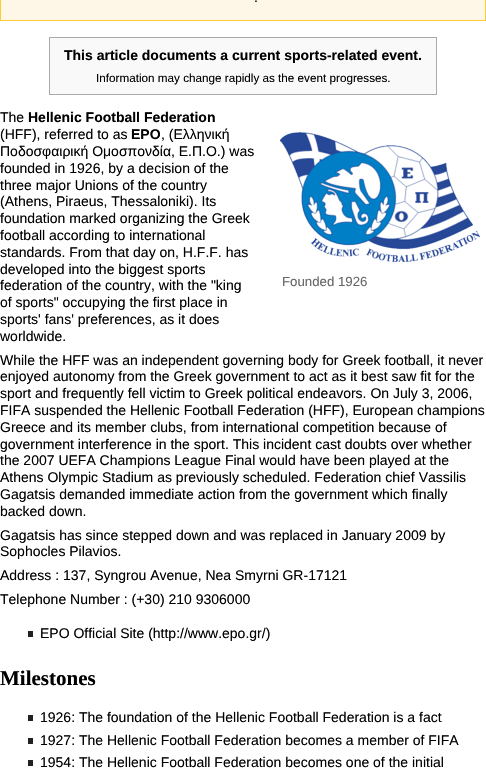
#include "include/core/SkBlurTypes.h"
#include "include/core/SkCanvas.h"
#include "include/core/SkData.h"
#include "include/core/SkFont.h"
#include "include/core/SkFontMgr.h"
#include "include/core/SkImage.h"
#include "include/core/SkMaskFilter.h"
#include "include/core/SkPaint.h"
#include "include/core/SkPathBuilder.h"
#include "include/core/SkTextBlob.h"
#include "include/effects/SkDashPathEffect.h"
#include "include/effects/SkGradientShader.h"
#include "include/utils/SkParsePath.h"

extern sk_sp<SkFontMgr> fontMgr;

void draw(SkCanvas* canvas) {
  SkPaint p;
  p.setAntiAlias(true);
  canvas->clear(SK_ColorWHITE);
  p.setColor(SkColorSetRGB(254, 246, 231));
  canvas->drawRect(SkRect::MakeLTRB(0.5f, -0.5f, 485.5f, 20.5f), p);
  p.setStyle(SkPaint::kStroke_Style);
  p.setStrokeWidth(1);
  p.setColor(SkColorSetRGB(255, 204, 51));
  canvas->drawRect(SkRect::MakeLTRB(0.5f, -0.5f, 485.5f, 20.5f), p);
  p.setStyle(SkPaint::kFill_Style);
  p.setColor(SkColorSetRGB(249, 249, 249));
  canvas->drawRect(SkRect::MakeLTRB(49.5f, 37.5f, 436.5f, 94.5f), p);
  p.setStyle(SkPaint::kStroke_Style);
  p.setColor(SkColorSetRGB(170, 170, 170));
  canvas->drawRect(SkRect::MakeLTRB(49.5f, 37.5f, 436.5f, 94.5f), p);
  canvas->drawImageRect(SkImages::DeferredFromEncodedData(SkData::MakeFromFileName("images/1.png")), SkRect::MakeLTRB(280, 131, 480, 262), SkSamplingOptions());
  p.setStyle(SkPaint::kFill_Style);
  p.setColor(SkColorSetRGB(32, 33, 34));
  canvas->drawRect(SkRect::MakeLTRB(28, 631, 33, 637), p);
  canvas->drawRect(SkRect::MakeLTRB(28, 715, 33, 721), p);
  canvas->drawRect(SkRect::MakeLTRB(28, 738, 33, 744), p);
  canvas->drawRect(SkRect::MakeLTRB(28, 760, 33, 766), p);
  SkFont font1(fontMgr->matchFamilyStyle("Liberation Sans", SkFontStyle::Normal()), 14);
  font1.setSubpixel(true);
  p.setColor(SK_ColorBLACK);
  canvas->drawString(".", 254, 2, font1, p);
  SkFont font2(fontMgr->matchFamilyStyle("Liberation Sans", SkFontStyle::Bold()), 14);
  font2.setSubpixel(true);
  canvas->drawString("This article documents a current sports-related event.", 64, 60, font2, p);
  SkFont font3(fontMgr->matchFamilyStyle("Liberation Sans", SkFontStyle::Normal()), 11.7f);
  font3.setSubpixel(true);
  canvas->drawString("Information may change rapidly as the event progresses.", 96, 82, font3, p);
  canvas->drawString("The", 0, 122, font1, p);
  canvas->drawString("Hellenic Football Federation", 28, 122, font2, p);
  canvas->drawString("(HFF), referred to as", 0, 139, font1, p);
  canvas->drawString("EPO", 131, 139, font2, p);
  canvas->drawString(", (Ελληνική", 161, 139, font1, p);
  canvas->drawString("Ποδοσφαιρική Ομοσπονδία, Ε.Π.Ο.) was", 0, 156, font1, p);
  canvas->drawString("founded in 1926, by a decision of the", 0, 173, font1, p);
  canvas->drawString("three major Unions of the country", 0, 190, font1, p);
  canvas->drawString("(Athens, Piraeus, Thessaloniki). Its", 0, 206, font1, p);
  canvas->drawString("foundation marked organizing the Greek", 0, 223, font1, p);
  canvas->drawString("football according to international", 0, 240, font1, p);
  canvas->drawString("standards. From that day on, H.F.F. has", 0, 257, font1, p);
  canvas->drawString("developed into the biggest sports", 0, 274, font1, p);
  canvas->drawString("federation of the country, with the \"king", 0, 290, font1, p);
  canvas->drawString("of sports\" occupying the first place in", 0, 307, font1, p);
  canvas->drawString("sports' fans' preferences, as it does", 0, 324, font1, p);
  canvas->drawString("worldwide.", 0, 341, font1, p);
  SkFont font4(fontMgr->matchFamilyStyle("Liberation Sans", SkFontStyle::Normal()), 13.25f);
  font4.setSubpixel(true);
  p.setColor(SkColorSetRGB(102, 102, 102));
  canvas->drawString("Founded 1926", 282, 286, font4, p);
  p.setColor(SK_ColorBLACK);
  canvas->drawString("While the HFF was an independent governing body for Greek football, it never", 0, 365, font1, p);
  canvas->drawString("enjoyed autonomy from the Greek government to act as it best saw fit for the", 0, 381, font1, p);
  canvas->drawString("sport and frequently fell victim to Greek political endeavors. On July 3, 2006,", 0, 398, font1, p);
  canvas->drawString("FIFA suspended the Hellenic Football Federation (HFF), European champions", 0, 415, font1, p);
  canvas->drawString("Greece and its member clubs, from international competition because of", 0, 432, font1, p);
  canvas->drawString("government interference in the sport. This incident cast doubts over whether", 0, 449, font1, p);
  canvas->drawString("the 2007 UEFA Champions League Final would have been played at the", 0, 465, font1, p);
  canvas->drawString("Athens Olympic Stadium as previously scheduled. Federation chief Vassilis", 0, 482, font1, p);
  canvas->drawString("Gagatsis demanded immediate action from the government which finally", 0, 499, font1, p);
  canvas->drawString("backed down.", 0, 516, font1, p);
  canvas->drawString("Gagatsis has since stepped down and was replaced in January 2009 by", 0, 540, font1, p);
  canvas->drawString("Sophocles Pilavios.", 0, 556, font1, p);
  canvas->drawString("Address : 137, Syngrou Avenue, Nea Smyrni GR-17121", 0, 580, font1, p);
  canvas->drawString("Telephone Number : (+30) 210 9306000", 0, 604, font1, p);
  canvas->drawString("EPO Official Site (http://www.epo.gr/)", 40, 638, font1, p);
  SkFont font5(fontMgr->matchFamilyStyle("Liberation Serif", SkFontStyle::Bold()), 21);
  font5.setSubpixel(true);
  canvas->drawString("Milestones", 0, 685, font5, p);
  canvas->drawString("1926: The foundation of the Hellenic Football Federation is a fact", 40, 722, font1, p);
  canvas->drawString("1927: The Hellenic Football Federation becomes a member of FIFA", 40, 745, font1, p);
  canvas->drawString("1954: The Hellenic Football Federation becomes one of the initial", 40, 767, font1, p);
}
